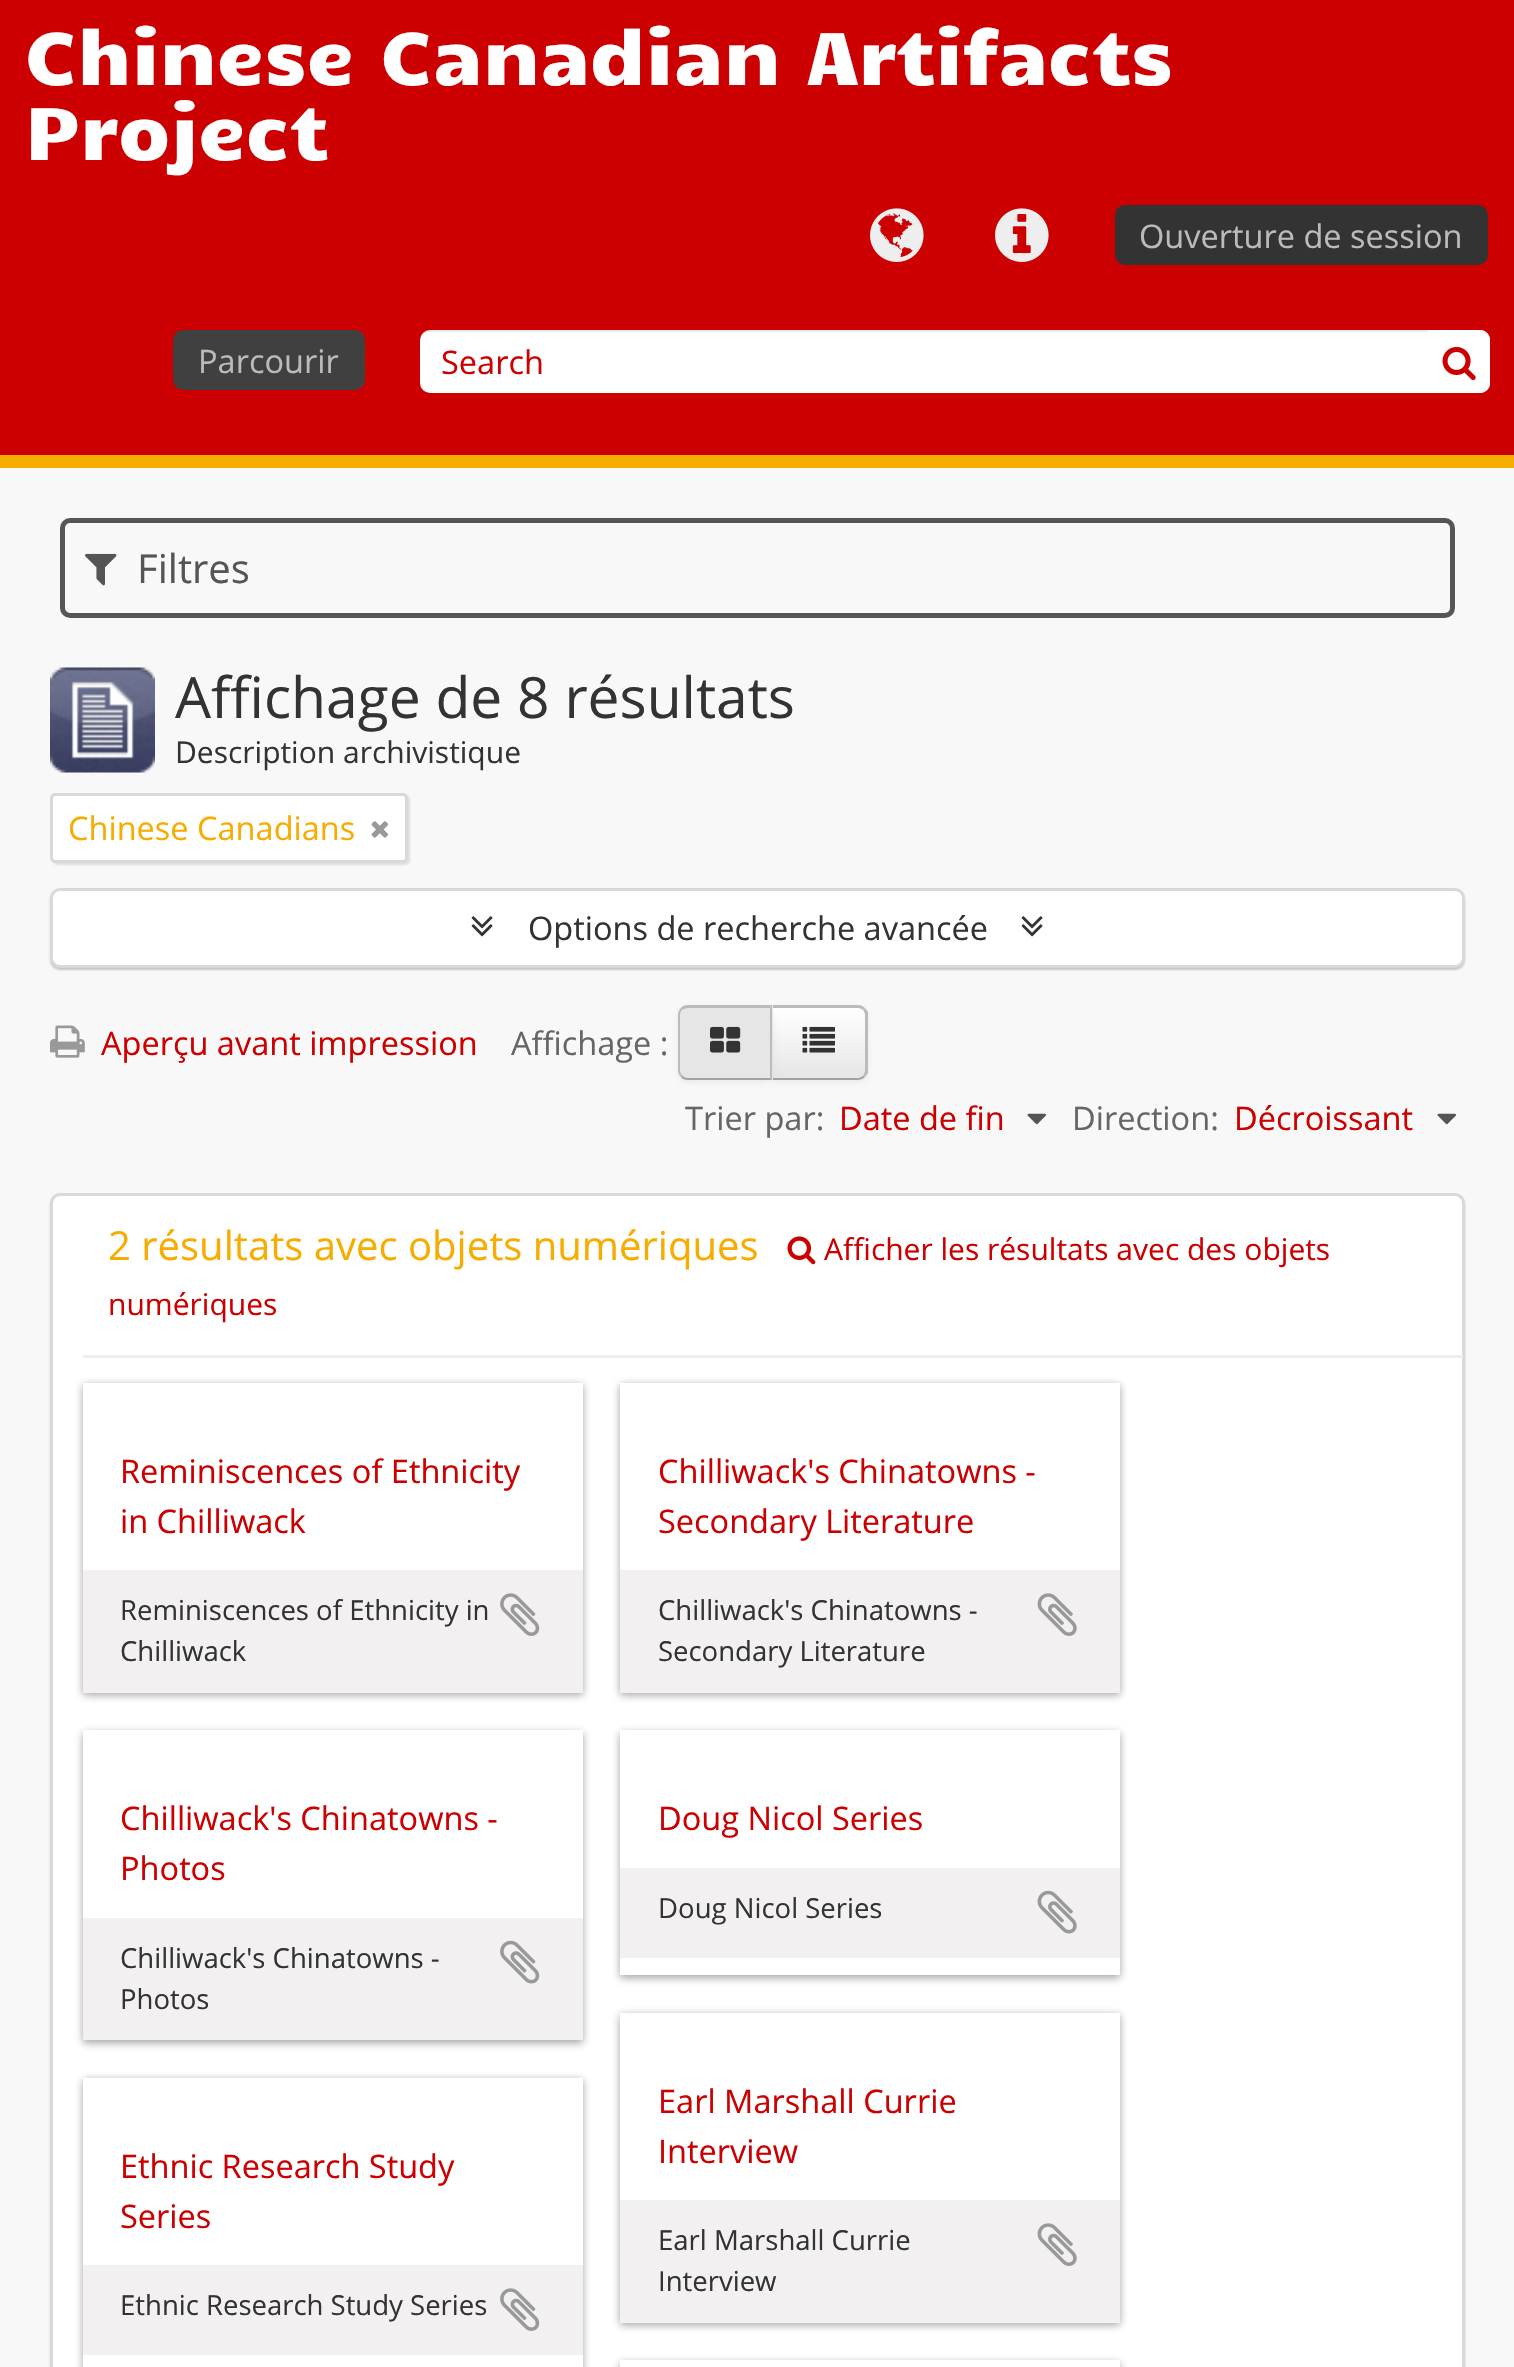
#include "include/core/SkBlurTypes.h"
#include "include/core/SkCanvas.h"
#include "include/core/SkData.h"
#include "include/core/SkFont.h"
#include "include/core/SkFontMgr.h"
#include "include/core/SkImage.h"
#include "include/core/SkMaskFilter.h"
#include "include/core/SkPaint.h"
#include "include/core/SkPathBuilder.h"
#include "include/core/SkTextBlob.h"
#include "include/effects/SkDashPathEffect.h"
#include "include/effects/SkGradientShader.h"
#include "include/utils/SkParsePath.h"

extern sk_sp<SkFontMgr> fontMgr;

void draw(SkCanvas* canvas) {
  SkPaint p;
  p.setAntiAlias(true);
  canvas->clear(SkColorSetRGB(248, 248, 248));
  p.setColor(SkColorSetRGB(204, 0, 0));
  canvas->drawRect(SkRect::MakeLTRB(0, 0, 1514, 455), p);
  p.setColor(SkColorSetRGB(246, 172, 0));
  canvas->drawRect(SkRect::MakeLTRB(0, 455, 1514, 468), p);
  canvas->drawImageRect(SkImages::DeferredFromEncodedData(SkData::MakeFromFileName("images/1.png")), SkRect::MakeLTRB(870, 208, 924, 262), SkSamplingOptions());
  canvas->drawImageRect(SkImages::DeferredFromEncodedData(SkData::MakeFromFileName("images/2.png")), SkRect::MakeLTRB(995, 208, 1049, 262), SkSamplingOptions());
  p.setColor(SkColorSetRGB(51, 51, 51));
  canvas->drawRoundRect(SkRect::MakeLTRB(1115, 205, 1488, 265), 10, 10, p);
  p.setColor(SkColorSetRGB(64, 64, 64));
  canvas->drawRoundRect(SkRect::MakeLTRB(173, 330, 365, 390), 10, 10, p);
  p.setColor(SK_ColorWHITE);
  canvas->drawRoundRect(SkRect::MakeLTRB(420, 330, 1490, 393), 10, 10, p);
  p.setColor(SkColorSetARGB(18, 0, 0, 0));
  canvas->drawPath(SkPathBuilder().moveTo(430, 332).lineTo(1480, 332).cubicTo(1486, 332, 1490, 337, 1490, 342).cubicTo(1490, 336, 1487, 330, 1480, 330).lineTo(430, 330).cubicTo(423, 330, 420, 336, 420, 342).cubicTo(420, 337, 424, 332, 430, 332).close().detach(), p);
  p.setColor(SK_ColorWHITE);
  canvas->drawPath(SkPathBuilder().moveTo(1428, 330).lineTo(1480, 330).cubicTo(1485.5f, 330, 1490, 334.5f, 1490, 340).lineTo(1490, 383).cubicTo(1490, 388.5f, 1485.5f, 393, 1480, 393).lineTo(1428, 393).close().detach(), p);
  canvas->drawImageRect(SkImages::DeferredFromEncodedData(SkData::MakeFromFileName("images/3.png")), SkRect::MakeLTRB(1442, 346, 1476, 381), SkSamplingOptions());
  p.setStyle(SkPaint::kStroke_Style);
  p.setStrokeWidth(5);
  p.setColor(SkColorSetRGB(85, 85, 85));
  canvas->drawRoundRect(SkRect::MakeLTRB(62.5f, 520.5f, 1452.5f, 615.5f), 7.5f, 7.5f, p);
  canvas->drawImageRect(SkImages::DeferredFromEncodedData(SkData::MakeFromFileName("images/4.png")), SkRect::MakeLTRB(85, 553, 117, 586), SkSamplingOptions());
  canvas->drawImageRect(SkImages::DeferredFromEncodedData(SkData::MakeFromFileName("images/5.png")), SkRect::MakeLTRB(50, 667, 155, 773), SkSamplingOptions());
  p.setStyle(SkPaint::kFill_Style);
  p.setColor(SkColorSetARGB(26, 0, 0, 0));
  p.setMaskFilter(SkMaskFilter::MakeBlur(kNormal_SkBlurStyle, 1));
  canvas->drawRoundRect(SkRect::MakeLTRB(53, 795, 410, 865), 5, 5, p);
  p.setMaskFilter(nullptr);
  p.setColor(SK_ColorWHITE);
  canvas->drawRoundRect(SkRect::MakeLTRB(51.5f, 794.5f, 406.5f, 861.5f), 3.5f, 3.5f, p);
  p.setStyle(SkPaint::kStroke_Style);
  p.setStrokeWidth(3);
  p.setColor(SkColorSetRGB(217, 217, 217));
  canvas->drawRoundRect(SkRect::MakeLTRB(51.5f, 794.5f, 406.5f, 861.5f), 3.5f, 3.5f, p);
  canvas->drawImageRect(SkImages::DeferredFromEncodedData(SkData::MakeFromFileName("images/6.png")), SkRect::MakeLTRB(371, 821, 389, 838), SkSamplingOptions());
  p.setStyle(SkPaint::kFill_Style);
  p.setColor(SkColorSetARGB(51, 0, 0, 0));
  p.setMaskFilter(SkMaskFilter::MakeBlur(kNormal_SkBlurStyle, 1));
  canvas->drawRoundRect(SkRect::MakeLTRB(50, 890, 1465, 970), 10, 10, p);
  p.setMaskFilter(nullptr);
  p.setColor(SK_ColorWHITE);
  canvas->drawRoundRect(SkRect::MakeLTRB(51.5f, 889.5f, 1463.5f, 966.5f), 8.5f, 8.5f, p);
  p.setStyle(SkPaint::kStroke_Style);
  p.setColor(SkColorSetRGB(217, 217, 217));
  canvas->drawRoundRect(SkRect::MakeLTRB(51.5f, 889.5f, 1463.5f, 966.5f), 8.5f, 8.5f, p);
  canvas->drawImageRect(SkImages::DeferredFromEncodedData(SkData::MakeFromFileName("images/7.png")), SkRect::MakeLTRB(471, 916, 493, 937), SkSamplingOptions());
  canvas->drawImageRect(SkImages::DeferredFromEncodedData(SkData::MakeFromFileName("images/7.png")), SkRect::MakeLTRB(1021, 916, 1043, 937), SkSamplingOptions());
  canvas->drawImageRect(SkImages::DeferredFromEncodedData(SkData::MakeFromFileName("images/8.png")), SkRect::MakeLTRB(50, 1025, 85, 1058), SkSamplingOptions());
  p.setStyle(SkPaint::kFill_Style);
  p.setColor(SkColorSetARGB(13, 0, 0, 0));
  p.setMaskFilter(SkMaskFilter::MakeBlur(kNormal_SkBlurStyle, 2.5f));
  canvas->drawRoundRect(SkRect::MakeLTRB(770, 1008, 868, 1083), 10, 10, p);
  p.setMaskFilter(nullptr);
  p.setColor(SkColorSetRGB(245, 245, 245));
  canvas->drawPath(SkPathBuilder().moveTo(770, 1005).lineTo(858, 1005).cubicTo(863.5f, 1005, 868, 1009.5f, 868, 1015).lineTo(868, 1070).cubicTo(868, 1075.5f, 863.5f, 1080, 858, 1080).lineTo(770, 1080).close().detach(), p);
  canvas->save();
  canvas->clipPath(SkPathBuilder().moveTo(770, 1005).lineTo(858, 1005).cubicTo(863.5f, 1005, 868, 1009.5f, 868, 1015).lineTo(868, 1070).cubicTo(868, 1075.5f, 863.5f, 1080, 858, 1080).lineTo(770, 1080).close().detach(), true);
  {
    const SkColor colors[] = {SK_ColorWHITE, SkColorSetRGB(230, 230, 230)};
    const float stops[] = {0, 1};
    const SkPoint ends[] = {{819, 1008}, {819, 1078}};
    p.setShader(SkGradientShader::MakeLinear(ends, colors, stops, 2, SkTileMode::kClamp));
    p.setAlpha(255);
  }
  canvas->drawRect(SkRect::MakeLTRB(773, 1008, 868, 1078), p);
  canvas->restore();
  p.setShader(nullptr);
  p.setColor(SkColorSetRGB(187, 187, 187));
  canvas->drawPath(SkPathBuilder().moveTo(770, 1005).lineTo(773, 1008).lineTo(858, 1008).cubicTo(860, 1008, 862, 1009, 863, 1010).lineTo(865, 1008).cubicTo(863, 1006, 860, 1005, 858, 1005).close().detach(), p);
  canvas->drawPath(SkPathBuilder().moveTo(868, 1073).lineTo(865, 1077).lineTo(863, 1076).cubicTo(864, 1074, 865, 1072, 865, 1070).lineTo(865, 1015).cubicTo(865, 1013, 864, 1011, 863, 1010).lineTo(865, 1008).lineTo(868, 1012).close().detach(), p);
  p.setColor(SkColorSetRGB(162, 162, 162));
  canvas->drawPath(SkPathBuilder().moveTo(858, 1080).cubicTo(860, 1080, 863, 1079, 865, 1077).lineTo(863, 1076).lineTo(859, 1078).lineTo(772, 1078).lineTo(770, 1080).close().detach(), p);
  p.setColor(SkColorSetARGB(13, 0, 0, 0));
  p.setMaskFilter(SkMaskFilter::MakeBlur(kNormal_SkBlurStyle, 2.5f));
  canvas->drawRoundRect(SkRect::MakeLTRB(678, 1008, 773, 1083), 10, 10, p);
  p.setMaskFilter(nullptr);
  p.setColor(SkColorSetRGB(230, 230, 230));
  canvas->drawPath(SkPathBuilder().moveTo(688, 1005).lineTo(773, 1005).lineTo(773, 1080).lineTo(688, 1080).cubicTo(682.5f, 1080, 678, 1075.5f, 678, 1070).lineTo(678, 1015).cubicTo(678, 1009.5f, 682.5f, 1005, 688, 1005).close().detach(), p);
  p.setColor(SkColorSetRGB(187, 187, 187));
  canvas->drawPath(SkPathBuilder().moveTo(688, 1005).cubicTo(685, 1005, 682, 1006, 681, 1008).lineTo(682, 1010).cubicTo(684, 1009, 686, 1008, 688, 1008).lineTo(770, 1008).lineTo(772, 1005).close().detach(), p);
  canvas->drawPath(SkPathBuilder().moveTo(772, 1006).lineTo(772, 1080).lineTo(770, 1078).lineTo(770, 1008).close().detach(), p);
  p.setColor(SkColorSetRGB(162, 162, 162));
  canvas->drawPath(SkPathBuilder().moveTo(688, 1080).lineTo(772, 1080).lineTo(770, 1078).lineTo(688, 1078).cubicTo(685, 1078, 683, 1077, 682, 1075).lineTo(681, 1077).cubicTo(682, 1079, 685, 1080, 688, 1080).close().detach(), p);
  p.setColor(SkColorSetRGB(187, 187, 187));
  canvas->drawPath(SkPathBuilder().moveTo(681, 1008).cubicTo(679, 1010, 678, 1012, 678, 1015).lineTo(678, 1070).cubicTo(678, 1073, 679, 1075, 681, 1077).lineTo(682, 1075).cubicTo(681, 1074, 680, 1072, 680, 1070).lineTo(680, 1015).cubicTo(680, 1013, 681, 1011, 682, 1010).close().detach(), p);
  canvas->drawImageRect(SkImages::DeferredFromEncodedData(SkData::MakeFromFileName("images/9.png")), SkRect::MakeLTRB(710, 1026, 741, 1053), SkSamplingOptions());
  canvas->drawImageRect(SkImages::DeferredFromEncodedData(SkData::MakeFromFileName("images/10.png")), SkRect::MakeLTRB(802, 1026, 835, 1053), SkSamplingOptions());
  canvas->drawImageRect(SkImages::DeferredFromEncodedData(SkData::MakeFromFileName("images/11.png")), SkRect::MakeLTRB(1027, 1113, 1046, 1125), SkSamplingOptions());
  canvas->drawImageRect(SkImages::DeferredFromEncodedData(SkData::MakeFromFileName("images/11.png")), SkRect::MakeLTRB(1437, 1113, 1456, 1125), SkSamplingOptions());
  p.setColor(SkColorSetARGB(51, 0, 0, 0));
  p.setMaskFilter(SkMaskFilter::MakeBlur(kNormal_SkBlurStyle, 1));
  canvas->drawRoundRect(SkRect::MakeLTRB(50, 1195, 1465, 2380), 10, 10, p);
  p.setMaskFilter(nullptr);
  p.setColor(SK_ColorWHITE);
  canvas->drawRoundRect(SkRect::MakeLTRB(51.5f, 1194.5f, 1463.5f, 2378.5f), 8.5f, 8.5f, p);
  p.setStyle(SkPaint::kStroke_Style);
  p.setColor(SkColorSetRGB(217, 217, 217));
  canvas->drawRoundRect(SkRect::MakeLTRB(51.5f, 1194.5f, 1463.5f, 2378.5f), 8.5f, 8.5f, p);
  p.setStyle(SkPaint::kFill_Style);
  p.setColor(SkColorSetRGB(238, 238, 238));
  canvas->drawRect(SkRect::MakeLTRB(83, 1355, 1463, 1358), p);
  canvas->drawImageRect(SkImages::DeferredFromEncodedData(SkData::MakeFromFileName("images/12.png")), SkRect::MakeLTRB(787, 1236, 816, 1265), SkSamplingOptions());
  p.setColor(SkColorSetARGB(102, 25, 25, 25));
  p.setMaskFilter(SkMaskFilter::MakeBlur(kNormal_SkBlurStyle, 4));
  canvas->drawRect(SkRect::MakeLTRB(83, 1385, 583, 1695), p);
  p.setMaskFilter(nullptr);
  p.setColor(SK_ColorWHITE);
  canvas->drawRect(SkRect::MakeLTRB(83, 1383, 583, 1570), p);
  p.setColor(SkColorSetRGB(242, 240, 240));
  canvas->drawRect(SkRect::MakeLTRB(83, 1570, 583, 1693), p);
  canvas->drawImageRect(SkImages::DeferredFromEncodedData(SkData::MakeFromFileName("images/13.png")), SkRect::MakeLTRB(500, 1593, 540, 1636), SkSamplingOptions());
  p.setColor(SkColorSetARGB(102, 25, 25, 25));
  p.setMaskFilter(SkMaskFilter::MakeBlur(kNormal_SkBlurStyle, 4));
  canvas->drawRect(SkRect::MakeLTRB(620, 1385, 1120, 1695), p);
  p.setMaskFilter(nullptr);
  p.setColor(SK_ColorWHITE);
  canvas->drawRect(SkRect::MakeLTRB(620, 1383, 1120, 1570), p);
  p.setColor(SkColorSetRGB(242, 240, 240));
  canvas->drawRect(SkRect::MakeLTRB(620, 1570, 1120, 1693), p);
  canvas->drawImageRect(SkImages::DeferredFromEncodedData(SkData::MakeFromFileName("images/14.png")), SkRect::MakeLTRB(1037, 1593, 1077, 1636), SkSamplingOptions());
  p.setColor(SkColorSetARGB(102, 25, 25, 25));
  p.setMaskFilter(SkMaskFilter::MakeBlur(kNormal_SkBlurStyle, 4));
  canvas->drawRect(SkRect::MakeLTRB(83, 1733, 583, 2043), p);
  p.setMaskFilter(nullptr);
  p.setColor(SK_ColorWHITE);
  canvas->drawRect(SkRect::MakeLTRB(83, 1730, 583, 1918), p);
  p.setColor(SkColorSetRGB(242, 240, 240));
  canvas->drawRect(SkRect::MakeLTRB(83, 1918, 583, 2040), p);
  canvas->drawImageRect(SkImages::DeferredFromEncodedData(SkData::MakeFromFileName("images/15.png")), SkRect::MakeLTRB(500, 1940, 540, 1984), SkSamplingOptions());
  canvas->save();
  canvas->clipPath(SkPathBuilder(SkPathFillType::kEvenOdd).moveTo(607, 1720).lineTo(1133, 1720).lineTo(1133, 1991).lineTo(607, 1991).close().moveTo(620, 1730).lineTo(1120, 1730).lineTo(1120, 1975).lineTo(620, 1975).close().detach(), true);
  p.setColor(SkColorSetARGB(102, 25, 25, 25));
  p.setMaskFilter(SkMaskFilter::MakeBlur(kNormal_SkBlurStyle, 4));
  canvas->drawRect(SkRect::MakeLTRB(620, 1733, 1120, 1978), p);
  p.setMaskFilter(nullptr);
  canvas->restore();
  p.setColor(SkColorSetRGB(242, 240, 240));
  canvas->drawRect(SkRect::MakeLTRB(620, 1868, 1120, 1958), p);
  canvas->drawImageRect(SkImages::DeferredFromEncodedData(SkData::MakeFromFileName("images/16.png")), SkRect::MakeLTRB(1037, 1890, 1077, 1934), SkSamplingOptions());
  p.setColor(SkColorSetARGB(102, 25, 25, 25));
  p.setMaskFilter(SkMaskFilter::MakeBlur(kNormal_SkBlurStyle, 4));
  canvas->drawRect(SkRect::MakeLTRB(83, 2080, 583, 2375), p);
  p.setMaskFilter(nullptr);
  p.setColor(SK_ColorWHITE);
  canvas->drawRect(SkRect::MakeLTRB(83, 2078, 583, 2367), p);
  p.setColor(SkColorSetRGB(242, 240, 240));
  canvas->drawRect(SkRect::MakeLTRB(83, 2265, 583, 2355), p);
  canvas->drawImageRect(SkImages::DeferredFromEncodedData(SkData::MakeFromFileName("images/13.png")), SkRect::MakeLTRB(500, 2288, 540, 2331), SkSamplingOptions());
  p.setColor(SkColorSetARGB(102, 25, 25, 25));
  p.setMaskFilter(SkMaskFilter::MakeBlur(kNormal_SkBlurStyle, 4));
  canvas->drawRect(SkRect::MakeLTRB(620, 2015, 1120, 2325), p);
  p.setMaskFilter(nullptr);
  p.setColor(SK_ColorWHITE);
  canvas->drawRect(SkRect::MakeLTRB(620, 2013, 1120, 2200), p);
  p.setColor(SkColorSetRGB(242, 240, 240));
  canvas->drawRect(SkRect::MakeLTRB(620, 2200, 1120, 2323), p);
  canvas->drawImageRect(SkImages::DeferredFromEncodedData(SkData::MakeFromFileName("images/14.png")), SkRect::MakeLTRB(1037, 2223, 1077, 2266), SkSamplingOptions());
  canvas->save();
  canvas->clipPath(SkPathBuilder(SkPathFillType::kEvenOdd).moveTo(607, 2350).lineTo(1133, 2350).lineTo(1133, 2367).lineTo(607, 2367).close().moveTo(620, 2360).lineTo(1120, 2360).lineTo(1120, 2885).lineTo(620, 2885).close().detach(), true);
  p.setColor(SkColorSetARGB(102, 25, 25, 25));
  p.setMaskFilter(SkMaskFilter::MakeBlur(kNormal_SkBlurStyle, 4));
  canvas->drawRect(SkRect::MakeLTRB(620, 2363, 1120, 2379), p);
  p.setMaskFilter(nullptr);
  canvas->restore();
  SkFont font1(fontMgr->matchFamilyStyle("Candal", SkFontStyle::Normal()), 75);
  font1.setSubpixel(true);
  p.setColor(SK_ColorWHITE);
  canvas->drawString("Chinese Canadian Artifacts", 25, 85, font1, p);
  canvas->drawString("Project", 25, 160, font1, p);
  SkFont font2(fontMgr->matchFamilyStyle("Open Sans", SkFontStyle::Normal()), 32.5f);
  font2.setSubpixel(true);
  p.setColor(SkColorSetRGB(187, 187, 187));
  canvas->drawString("Ouverture de session", 1139, 248, font2, p);
  canvas->drawString("Parcourir", 198, 373, font2, p);
  p.setColor(SkColorSetRGB(204, 0, 0));
  canvas->drawString("Search", 441, 374, font2, p);
  SkFont font3(fontMgr->matchFamilyStyle("Open Sans", SkFontStyle::Normal()), 40);
  font3.setSubpixel(true);
  p.setColor(SkColorSetRGB(85, 85, 85));
  canvas->drawString("Filtres", 137, 583, font3, p);
  SkFont font4(fontMgr->matchFamilyStyle("Open Sans", SkFontStyle::Normal()), 56.9f);
  font4.setSubpixel(true);
  p.setColor(SkColorSetRGB(51, 51, 51));
  canvas->drawString("Affichage de 8 résultats", 175, 718, font4, p);
  SkFont font5(fontMgr->matchFamilyStyle("Open Sans", SkFontStyle::Normal()), 30);
  font5.setSubpixel(true);
  canvas->drawString("Description archivistique", 175, 763, font5, p);
  p.setColor(SkColorSetRGB(246, 172, 0));
  canvas->drawString("Chinese Canadians", 68, 840, font2, p);
  p.setColor(SkColorSetRGB(51, 51, 51));
  canvas->drawString("Options de recherche avancée", 528, 940, font2, p);
  p.setColor(SkColorSetRGB(204, 0, 0));
  canvas->drawString("Aperçu avant impression", 101, 1055, font2, p);
  p.setColor(SkColorSetRGB(102, 102, 102));
  canvas->drawString("Affichage :", 511, 1055, font2, p);
  canvas->drawString("Trier par:", 685, 1130, font2, p);
  p.setColor(SkColorSetRGB(204, 0, 0));
  canvas->drawString("Date de fin", 839, 1130, font2, p);
  p.setColor(SkColorSetRGB(102, 102, 102));
  canvas->drawString("Direction:", 1072, 1130, font2, p);
  p.setColor(SkColorSetRGB(204, 0, 0));
  canvas->drawString("Décroissant", 1234, 1130, font2, p);
  p.setColor(SkColorSetRGB(246, 172, 0));
  canvas->drawString("2 résultats avec objets numériques", 108, 1260, font3, p);
  p.setColor(SkColorSetRGB(204, 0, 0));
  canvas->drawString("Afficher les résultats avec des objets", 824, 1260, font5, p);
  canvas->drawString("numériques", 108, 1315, font5, p);
  canvas->drawString("Reminiscences of Ethnicity", 120, 1483, font2, p);
  canvas->drawString("in Chilliwack", 120, 1533, font2, p);
  SkFont font6(fontMgr->matchFamilyStyle("Open Sans", SkFontStyle::Normal()), 27.5f);
  font6.setSubpixel(true);
  p.setColor(SkColorSetRGB(51, 51, 51));
  canvas->drawString("Reminiscences of Ethnicity in", 120, 1620, font6, p);
  canvas->drawString("Chilliwack", 120, 1661, font6, p);
  p.setColor(SkColorSetRGB(204, 0, 0));
  canvas->drawString("Chilliwack's Chinatowns -", 658, 1483, font2, p);
  canvas->drawString("Secondary Literature", 658, 1533, font2, p);
  p.setColor(SkColorSetRGB(51, 51, 51));
  canvas->drawString("Chilliwack's Chinatowns -", 658, 1620, font6, p);
  canvas->drawString("Secondary Literature", 658, 1661, font6, p);
  p.setColor(SkColorSetRGB(204, 0, 0));
  canvas->drawString("Chilliwack's Chinatowns -", 120, 1830, font2, p);
  canvas->drawString("Photos", 120, 1880, font2, p);
  p.setColor(SkColorSetRGB(51, 51, 51));
  canvas->drawString("Chilliwack's Chinatowns -", 120, 1968, font6, p);
  canvas->drawString("Photos", 120, 2009, font6, p);
  p.setColor(SkColorSetRGB(204, 0, 0));
  canvas->drawString("Doug Nicol Series", 658, 1830, font2, p);
  p.setColor(SkColorSetRGB(51, 51, 51));
  canvas->drawString("Doug Nicol Series", 658, 1918, font6, p);
  p.setColor(SkColorSetRGB(204, 0, 0));
  canvas->drawString("Ethnic Research Study", 120, 2178, font2, p);
  canvas->drawString("Series", 120, 2228, font2, p);
  p.setColor(SkColorSetRGB(51, 51, 51));
  canvas->drawString("Ethnic Research Study Series", 120, 2315, font6, p);
  p.setColor(SkColorSetRGB(204, 0, 0));
  canvas->drawString("Earl Marshall Currie", 658, 2113, font2, p);
  canvas->drawString("Interview", 658, 2163, font2, p);
  p.setColor(SkColorSetRGB(51, 51, 51));
  canvas->drawString("Earl Marshall Currie", 658, 2250, font6, p);
  canvas->drawString("Interview", 658, 2291, font6, p);
}
